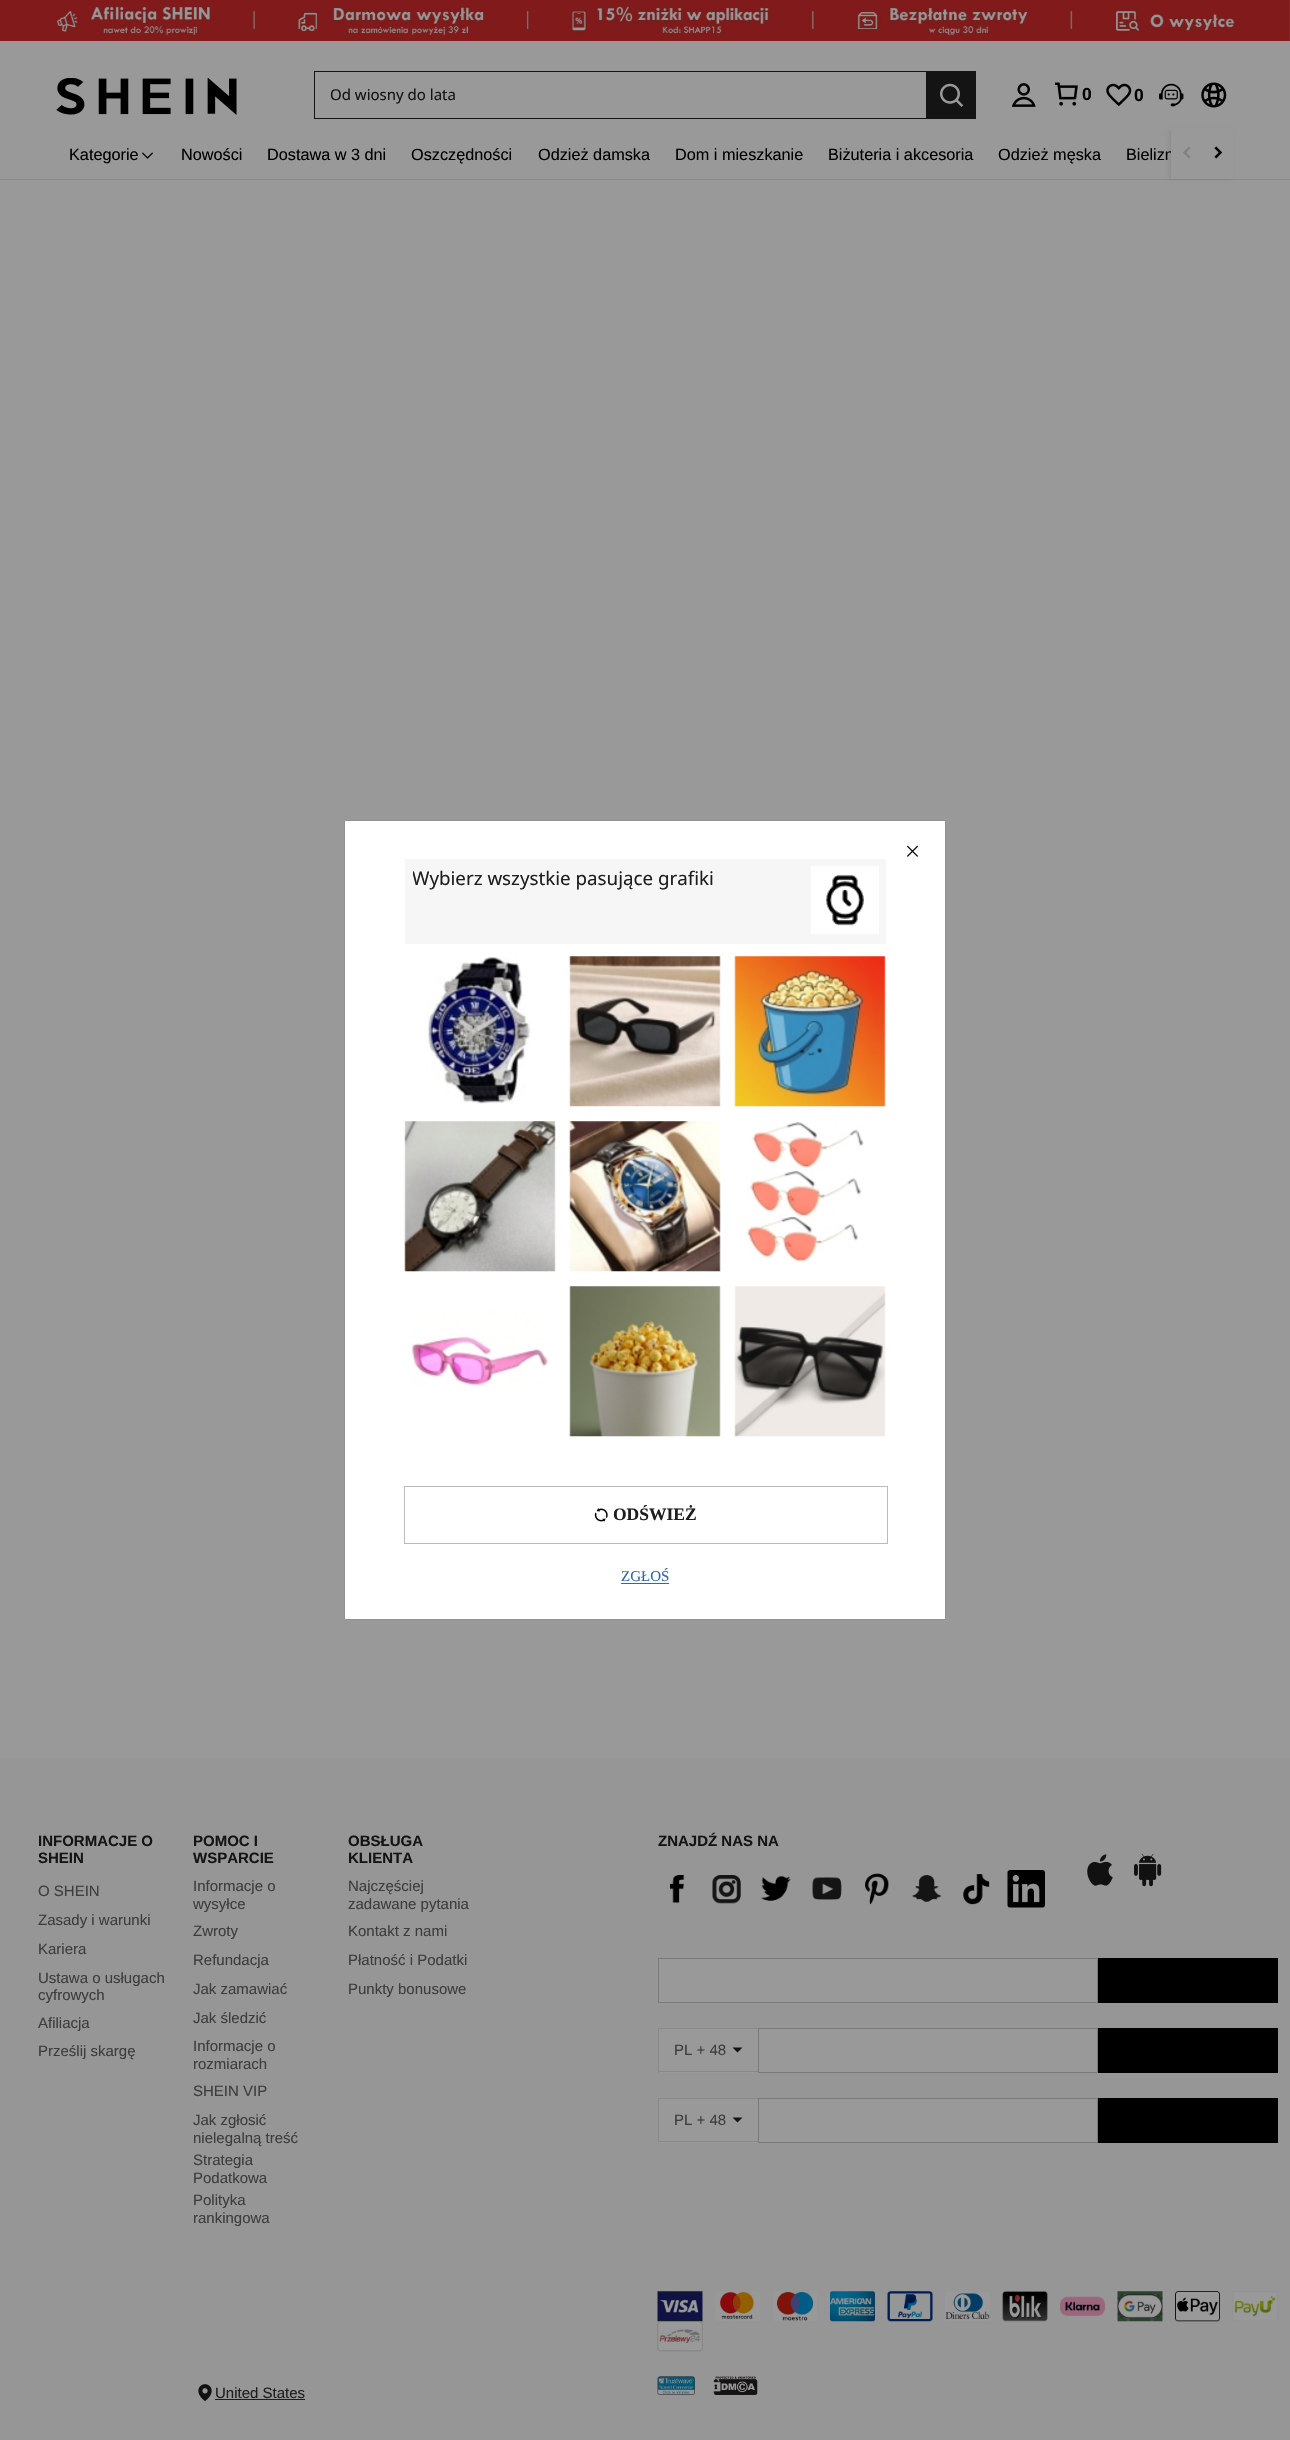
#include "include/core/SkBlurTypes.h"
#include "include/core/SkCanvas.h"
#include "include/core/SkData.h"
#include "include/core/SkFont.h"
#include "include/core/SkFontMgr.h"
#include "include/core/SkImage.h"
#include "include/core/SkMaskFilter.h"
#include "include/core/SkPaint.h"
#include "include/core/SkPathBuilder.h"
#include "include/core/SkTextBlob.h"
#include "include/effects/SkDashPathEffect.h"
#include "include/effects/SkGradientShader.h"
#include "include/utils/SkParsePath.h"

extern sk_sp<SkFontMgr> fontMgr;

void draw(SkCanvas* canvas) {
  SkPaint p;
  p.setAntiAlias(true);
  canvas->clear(SkColorSetRGB(153, 153, 153));
  canvas->drawImageRect(SkImages::DeferredFromEncodedData(SkData::MakeFromFileName("images/1.png")), SkRect::MakeLTRB(0, 0, 1290, 41), SkSamplingOptions());
  p.setColor(SkColorSetRGB(137, 137, 137));
  canvas->drawRect(SkRect::MakeLTRB(0, 179, 1290, 180), p);
  p.setColor(SkColorSetARGB(20, 0, 0, 0));
  p.setMaskFilter(SkMaskFilter::MakeBlur(kNormal_SkBlurStyle, 2));
  canvas->drawRect(SkRect::MakeLTRB(1169, 130, 1231, 179), p);
  p.setMaskFilter(nullptr);
  p.setColor(SkColorSetRGB(153, 153, 153));
  canvas->drawRect(SkRect::MakeLTRB(1169, 128, 1231, 130), p);
  canvas->drawImageRect(SkImages::DeferredFromEncodedData(SkData::MakeFromFileName("images/2.png")), SkRect::MakeLTRB(56, 78, 237, 115), SkSamplingOptions());
  p.setColor(SkColorSetRGB(20, 20, 20));
  canvas->drawRect(SkRect::MakeLTRB(314, 71, 926, 72), p);
  canvas->drawRect(SkRect::MakeLTRB(314, 118, 926, 119), p);
  canvas->drawRect(SkRect::MakeLTRB(314, 71, 315, 119), p);
  canvas->drawRect(SkRect::MakeLTRB(926, 71, 976, 119), p);
  canvas->drawImageRect(SkImages::DeferredFromEncodedData(SkData::MakeFromFileName("images/3.png")), SkRect::MakeLTRB(940, 83, 964, 107), SkSamplingOptions());
  canvas->drawImageRect(SkImages::DeferredFromEncodedData(SkData::MakeFromFileName("images/4.png")), SkRect::MakeLTRB(1011, 83, 1036, 107), SkSamplingOptions());
  canvas->drawImageRect(SkImages::DeferredFromEncodedData(SkData::MakeFromFileName("images/5.png")), SkRect::MakeLTRB(1055, 82, 1078, 106), SkSamplingOptions());
  canvas->drawImageRect(SkImages::DeferredFromEncodedData(SkData::MakeFromFileName("images/6.png")), SkRect::MakeLTRB(1106, 83, 1132, 107), SkSamplingOptions());
  canvas->drawImageRect(SkImages::DeferredFromEncodedData(SkData::MakeFromFileName("images/7.png")), SkRect::MakeLTRB(1159, 83, 1184, 107), SkSamplingOptions());
  canvas->drawImageRect(SkImages::DeferredFromEncodedData(SkData::MakeFromFileName("images/8.png")), SkRect::MakeLTRB(1201, 82, 1227, 108), SkSamplingOptions());
  canvas->drawImageRect(SkImages::DeferredFromEncodedData(SkData::MakeFromFileName("images/9.png")), SkRect::MakeLTRB(142, 152, 153, 159), SkSamplingOptions());
  p.setColor(SkColorSetRGB(150, 150, 150));
  canvas->drawRect(SkRect::MakeLTRB(0, 1758, 1290, 2440), p);
  canvas->drawImageRect(SkImages::DeferredFromEncodedData(SkData::MakeFromFileName("images/12.png")), SkRect::MakeLTRB(670, 1875, 685, 1903), SkSamplingOptions());
  canvas->drawImageRect(SkImages::DeferredFromEncodedData(SkData::MakeFromFileName("images/13.png")), SkRect::MakeLTRB(712, 1875, 741, 1904), SkSamplingOptions());
  canvas->drawImageRect(SkImages::DeferredFromEncodedData(SkData::MakeFromFileName("images/14.png")), SkRect::MakeLTRB(761, 1875, 791, 1901), SkSamplingOptions());
  canvas->drawImageRect(SkImages::DeferredFromEncodedData(SkData::MakeFromFileName("images/15.png")), SkRect::MakeLTRB(812, 1877, 842, 1900), SkSamplingOptions());
  canvas->drawImageRect(SkImages::DeferredFromEncodedData(SkData::MakeFromFileName("images/16.png")), SkRect::MakeLTRB(865, 1873, 889, 1905), SkSamplingOptions());
  canvas->drawImageRect(SkImages::DeferredFromEncodedData(SkData::MakeFromFileName("images/17.png")), SkRect::MakeLTRB(912, 1875, 941, 1902), SkSamplingOptions());
  canvas->drawImageRect(SkImages::DeferredFromEncodedData(SkData::MakeFromFileName("images/18.png")), SkRect::MakeLTRB(963, 1874, 990, 1905), SkSamplingOptions());
  canvas->drawImageRect(SkImages::DeferredFromEncodedData(SkData::MakeFromFileName("images/19.png")), SkRect::MakeLTRB(1007, 1870, 1045, 1908), SkSamplingOptions());
  canvas->drawImageRect(SkImages::DeferredFromEncodedData(SkData::MakeFromFileName("images/20.png")), SkRect::MakeLTRB(1087, 1854, 1113, 1886), SkSamplingOptions());
  canvas->drawImageRect(SkImages::DeferredFromEncodedData(SkData::MakeFromFileName("images/21.png")), SkRect::MakeLTRB(1134, 1853, 1162, 1887), SkSamplingOptions());
  p.setColor(SkColorSetRGB(153, 153, 153));
  canvas->drawRect(SkRect::MakeLTRB(658.5f, 1958.5f, 1097.5f, 2002.5f), p);
  p.setStyle(SkPaint::kStroke_Style);
  p.setStrokeWidth(1);
  p.setColor(SkColorSetRGB(122, 122, 122));
  canvas->drawRect(SkRect::MakeLTRB(658.5f, 1958.5f, 1097.5f, 2002.5f), p);
  p.setStyle(SkPaint::kFill_Style);
  p.setColor(SK_ColorBLACK);
  canvas->drawRect(SkRect::MakeLTRB(1098, 1958, 1278, 2003), p);
  p.setColor(SkColorSetRGB(153, 153, 153));
  canvas->drawRect(SkRect::MakeLTRB(659, 2029, 758, 2073), p);
  p.setColor(SkColorSetRGB(137, 137, 137));
  canvas->drawRect(SkRect::MakeLTRB(658, 2028, 758, 2029), p);
  canvas->drawRect(SkRect::MakeLTRB(658, 2071, 758, 2072), p);
  canvas->drawRect(SkRect::MakeLTRB(658, 2028, 659, 2073), p);
  p.setColor(SkColorSetRGB(20, 20, 20));
  canvas->drawPath(SkPathBuilder().moveTo(732.5f, 2047.5f).lineTo(742.5f, 2047.5f).lineTo(737.5f, 2052.5f).close().detach(), p);
  p.setColor(SkColorSetRGB(153, 153, 153));
  canvas->drawRect(SkRect::MakeLTRB(758.5f, 2028.5f, 1097.5f, 2072.5f), p);
  p.setStyle(SkPaint::kStroke_Style);
  p.setColor(SkColorSetRGB(122, 122, 122));
  canvas->drawRect(SkRect::MakeLTRB(758.5f, 2028.5f, 1097.5f, 2072.5f), p);
  p.setStyle(SkPaint::kFill_Style);
  p.setColor(SK_ColorBLACK);
  canvas->drawRect(SkRect::MakeLTRB(1098, 2028, 1278, 2073), p);
  p.setColor(SkColorSetRGB(153, 153, 153));
  canvas->drawRect(SkRect::MakeLTRB(659, 2099, 758, 2143), p);
  p.setColor(SkColorSetRGB(137, 137, 137));
  canvas->drawRect(SkRect::MakeLTRB(658, 2098, 758, 2099), p);
  canvas->drawRect(SkRect::MakeLTRB(658, 2141, 758, 2142), p);
  canvas->drawRect(SkRect::MakeLTRB(658, 2098, 659, 2143), p);
  p.setColor(SkColorSetRGB(20, 20, 20));
  canvas->drawPath(SkPathBuilder().moveTo(732.5f, 2117.5f).lineTo(742.5f, 2117.5f).lineTo(737.5f, 2122.5f).close().detach(), p);
  p.setColor(SkColorSetRGB(153, 153, 153));
  canvas->drawRect(SkRect::MakeLTRB(758.5f, 2098.5f, 1097.5f, 2142.5f), p);
  p.setStyle(SkPaint::kStroke_Style);
  p.setColor(SkColorSetRGB(122, 122, 122));
  canvas->drawRect(SkRect::MakeLTRB(758.5f, 2098.5f, 1097.5f, 2142.5f), p);
  p.setStyle(SkPaint::kFill_Style);
  p.setColor(SK_ColorBLACK);
  canvas->drawRect(SkRect::MakeLTRB(1098, 2098, 1278, 2143), p);
  canvas->drawImageRect(SkImages::DeferredFromEncodedData(SkData::MakeFromFileName("images/22.png")), SkRect::MakeLTRB(657, 2291, 703, 2322), SkSamplingOptions());
  canvas->drawImageRect(SkImages::DeferredFromEncodedData(SkData::MakeFromFileName("images/23.png")), SkRect::MakeLTRB(715, 2291, 760, 2321), SkSamplingOptions());
  canvas->drawImageRect(SkImages::DeferredFromEncodedData(SkData::MakeFromFileName("images/24.png")), SkRect::MakeLTRB(773, 2291, 817, 2321), SkSamplingOptions());
  canvas->drawImageRect(SkImages::DeferredFromEncodedData(SkData::MakeFromFileName("images/25.png")), SkRect::MakeLTRB(830, 2291, 875, 2322), SkSamplingOptions());
  canvas->drawImageRect(SkImages::DeferredFromEncodedData(SkData::MakeFromFileName("images/26.png")), SkRect::MakeLTRB(887, 2291, 933, 2322), SkSamplingOptions());
  canvas->drawImageRect(SkImages::DeferredFromEncodedData(SkData::MakeFromFileName("images/27.png")), SkRect::MakeLTRB(945, 2292, 990, 2321), SkSamplingOptions());
  canvas->drawImageRect(SkImages::DeferredFromEncodedData(SkData::MakeFromFileName("images/28.png")), SkRect::MakeLTRB(1002, 2291, 1048, 2322), SkSamplingOptions());
  canvas->drawImageRect(SkImages::DeferredFromEncodedData(SkData::MakeFromFileName("images/29.png")), SkRect::MakeLTRB(1060, 2296, 1105, 2316), SkSamplingOptions());
  canvas->drawImageRect(SkImages::DeferredFromEncodedData(SkData::MakeFromFileName("images/30.png")), SkRect::MakeLTRB(1117, 2291, 1163, 2322), SkSamplingOptions());
  canvas->drawImageRect(SkImages::DeferredFromEncodedData(SkData::MakeFromFileName("images/31.png")), SkRect::MakeLTRB(1175, 2291, 1220, 2322), SkSamplingOptions());
  canvas->drawImageRect(SkImages::DeferredFromEncodedData(SkData::MakeFromFileName("images/32.png")), SkRect::MakeLTRB(1232, 2291, 1278, 2321), SkSamplingOptions());
  canvas->drawImageRect(SkImages::DeferredFromEncodedData(SkData::MakeFromFileName("images/33.png")), SkRect::MakeLTRB(657, 2321, 703, 2352), SkSamplingOptions());
  canvas->drawImageRect(SkImages::DeferredFromEncodedData(SkData::MakeFromFileName("images/34.png")), SkRect::MakeLTRB(198, 2384, 212, 2401), SkSamplingOptions());
  p.setColor(SkColorSetRGB(30, 30, 30));
  canvas->drawRect(SkRect::MakeLTRB(215, 2399, 305, 2400), p);
  canvas->drawImageRect(SkImages::DeferredFromEncodedData(SkData::MakeFromFileName("images/35.png")), SkRect::MakeLTRB(657, 2376, 695, 2395), SkSamplingOptions());
  canvas->drawImageRect(SkImages::DeferredFromEncodedData(SkData::MakeFromFileName("images/36.png")), SkRect::MakeLTRB(713, 2376, 758, 2395), SkSamplingOptions());
  p.setColor(SkColorSetARGB(77, 0, 0, 0));
  p.setMaskFilter(SkMaskFilter::MakeBlur(kNormal_SkBlurStyle, 0.5f));
  canvas->drawRect(SkRect::MakeLTRB(345, 821, 945, 1619), p);
  p.setMaskFilter(nullptr);
  p.setColor(SK_ColorWHITE);
  canvas->drawRect(SkRect::MakeLTRB(345, 821, 945, 1619), p);
  canvas->drawImageRect(SkImages::DeferredFromEncodedData(SkData::MakeFromFileName("images/37.png")), SkRect::MakeLTRB(907, 845, 918, 857), SkSamplingOptions());
  p.setColor(SkColorSetRGB(246, 246, 246));
  canvas->drawRect(SkRect::MakeLTRB(405, 859, 886, 944), p);
  p.setColor(SK_ColorWHITE);
  canvas->drawRect(SkRect::MakeLTRB(811, 866, 879, 934), p);
  canvas->drawImageRect(SkImages::DeferredFromEncodedData(SkData::MakeFromFileName("images/38.png")), SkRect::MakeLTRB(826, 874, 864, 926), SkSamplingOptions());
  canvas->drawImageRect(SkImages::DeferredFromEncodedData(SkData::MakeFromFileName("images/39.png")), SkRect::MakeLTRB(426, 957, 531, 1104), SkSamplingOptions());
  canvas->drawImageRect(SkImages::DeferredFromEncodedData(SkData::MakeFromFileName("images/40.png")), SkRect::MakeLTRB(569, 956, 721, 1107), SkSamplingOptions());
  canvas->drawImageRect(SkImages::DeferredFromEncodedData(SkData::MakeFromFileName("images/41.png")), SkRect::MakeLTRB(734, 956, 886, 1107), SkSamplingOptions());
  canvas->drawImageRect(SkImages::DeferredFromEncodedData(SkData::MakeFromFileName("images/42.png")), SkRect::MakeLTRB(404, 1121, 556, 1272), SkSamplingOptions());
  canvas->drawImageRect(SkImages::DeferredFromEncodedData(SkData::MakeFromFileName("images/43.png")), SkRect::MakeLTRB(569, 1121, 721, 1272), SkSamplingOptions());
  canvas->drawImageRect(SkImages::DeferredFromEncodedData(SkData::MakeFromFileName("images/44.png")), SkRect::MakeLTRB(746, 1122, 864, 1263), SkSamplingOptions());
  canvas->drawImageRect(SkImages::DeferredFromEncodedData(SkData::MakeFromFileName("images/45.png")), SkRect::MakeLTRB(411, 1307, 549, 1387), SkSamplingOptions());
  canvas->drawImageRect(SkImages::DeferredFromEncodedData(SkData::MakeFromFileName("images/46.png")), SkRect::MakeLTRB(569, 1286, 721, 1437), SkSamplingOptions());
  canvas->drawImageRect(SkImages::DeferredFromEncodedData(SkData::MakeFromFileName("images/47.png")), SkRect::MakeLTRB(734, 1286, 886, 1437), SkSamplingOptions());
  p.setStyle(SkPaint::kStroke_Style);
  p.setColor(SkColorSetRGB(187, 187, 187));
  canvas->drawRect(SkRect::MakeLTRB(404.5f, 1486.5f, 887.5f, 1543.5f), p);
  canvas->drawImageRect(SkImages::DeferredFromEncodedData(SkData::MakeFromFileName("images/48.png")), SkRect::MakeLTRB(594, 1508, 608, 1522), SkSamplingOptions());
  p.setStyle(SkPaint::kFill_Style);
  p.setColor(SkColorSetRGB(45, 104, 168));
  canvas->drawRect(SkRect::MakeLTRB(621, 1583, 669, 1584), p);
  SkFont font1(fontMgr->matchFamilyStyle("Noto Sans", SkFontStyle::Normal()), 15);
  font1.setSubpixel(true);
  p.setColor(SkColorSetRGB(20, 20, 20));
  canvas->drawString("Od wiosny do lata", 330, 100, font1, p);
  SkFont font2(fontMgr->matchFamilyStyle("Liberation Sans", SkFontStyle::Bold()), 17.5f);
  font2.setSubpixel(true);
  p.setColor(SK_ColorBLACK);
  canvas->drawString("0", 1082, 100, font2, p);
  canvas->drawString("0", 1134, 101, font2, p);
  SkFont font3(fontMgr->matchFamilyStyle("Liberation Sans", SkFontStyle::Normal()), 16.25f);
  font3.setSubpixel(true);
  canvas->drawString("Kategorie", 69, 160, font3, p);
  canvas->drawString("Nowości", 181, 160, font3, p);
  canvas->drawString("Dostawa w 3 dni", 267, 160, font3, p);
  canvas->drawString("Oszczędności", 411, 160, font3, p);
  canvas->drawString("Odzież damska", 538, 160, font3, p);
  canvas->drawString("Dom i mieszkanie", 675, 160, font3, p);
  canvas->drawString("Biżuteria i akcesoria", 828, 160, font3, p);
  canvas->drawString("Odzież męska", 998, 160, font3, p);
  canvas->drawString("Bielizn", 1126, 160, font3, p);
  p.setColor(SkColorSetRGB(153, 153, 153));
  canvas->drawRect(SkRect::MakeLTRB(1171, 130, 1233, 179), p);
  canvas->drawImageRect(SkImages::DeferredFromEncodedData(SkData::MakeFromFileName("images/10.png")), SkRect::MakeLTRB(1183, 146, 1191, 159), SkSamplingOptions());
  canvas->drawImageRect(SkImages::DeferredFromEncodedData(SkData::MakeFromFileName("images/11.png")), SkRect::MakeLTRB(1214, 146, 1223, 159), SkSamplingOptions());
  SkFont font4(fontMgr->matchFamilyStyle("Liberation Sans", SkFontStyle::Bold()), 15);
  font4.setSubpixel(true);
  p.setColor(SkColorSetRGB(20, 20, 20));
  canvas->drawString("INFORMACJE O", 38, 1846, font4, p);
  canvas->drawString("SHEIN", 38, 1863, font4, p);
  SkFont font5(fontMgr->matchFamilyStyle("Liberation Sans", SkFontStyle::Normal()), 15);
  font5.setSubpixel(true);
  p.setColor(SkColorSetRGB(61, 61, 61));
  canvas->drawString("O SHEIN", 38, 1896, font5, p);
  canvas->drawString("Zasady i warunki", 38, 1925, font5, p);
  canvas->drawString("Kariera", 38, 1954, font5, p);
  canvas->drawString("Ustawa o usługach", 38, 1983, font5, p);
  canvas->drawString("cyfrowych", 38, 2000, font5, p);
  canvas->drawString("Afiliacja", 38, 2028, font5, p);
  canvas->drawString("Prześlij skargę", 38, 2056, font5, p);
  p.setColor(SkColorSetRGB(20, 20, 20));
  canvas->drawString("POMOC I", 193, 1846, font4, p);
  canvas->drawString("WSPARCIE", 193, 1863, font4, p);
  p.setColor(SkColorSetRGB(61, 61, 61));
  canvas->drawString("Informacje o", 193, 1891, font5, p);
  canvas->drawString("wysyłce", 193, 1909, font5, p);
  canvas->drawString("Zwroty", 193, 1936, font5, p);
  canvas->drawString("Refundacja", 193, 1965, font5, p);
  canvas->drawString("Jak zamawiać", 193, 1994, font5, p);
  canvas->drawString("Jak śledzić", 193, 2023, font5, p);
  canvas->drawString("Informacje o", 193, 2051, font5, p);
  canvas->drawString("rozmiarach", 193, 2069, font5, p);
  canvas->drawString("SHEIN VIP", 193, 2096, font5, p);
  canvas->drawString("Jak zgłosić", 193, 2125, font5, p);
  canvas->drawString("nielegalną treść", 193, 2143, font5, p);
  canvas->drawString("Strategia", 193, 2165, font5, p);
  canvas->drawString("Podatkowa", 193, 2183, font5, p);
  canvas->drawString("Polityka", 193, 2205, font5, p);
  canvas->drawString("rankingowa", 193, 2223, font5, p);
  p.setColor(SkColorSetRGB(20, 20, 20));
  canvas->drawString("OBSŁUGA", 348, 1846, font4, p);
  canvas->drawString("KLIENTA", 348, 1863, font4, p);
  p.setColor(SkColorSetRGB(61, 61, 61));
  canvas->drawString("Najczęściej", 348, 1891, font5, p);
  canvas->drawString("zadawane pytania", 348, 1909, font5, p);
  canvas->drawString("Kontakt z nami", 348, 1936, font5, p);
  canvas->drawString("Płatność i Podatki", 348, 1965, font5, p);
  canvas->drawString("Punkty bonusowe", 348, 1994, font5, p);
  p.setColor(SkColorSetRGB(20, 20, 20));
  canvas->drawString("ZNAJDŹ NAS NA", 658, 1846, font4, p);
  p.setColor(SkColorSetRGB(61, 61, 61));
  canvas->drawString("PL + 48", 674, 2055, font5, p);
  canvas->drawString("PL + 48", 674, 2125, font5, p);
  p.setColor(SkColorSetRGB(30, 30, 30));
  canvas->drawString("United States", 215, 2398, font5, p);
  canvas->save();
  canvas->clipRect(SkRect::MakeLTRB(413, 866, 788, 936));
  SkFont font6(fontMgr->matchFamilyStyle("Noto Sans", SkFontStyle::Normal()), 18.75f);
  font6.setSubpixel(true);
  canvas->drawString("Wybierz wszystkie pasujące grafiki", 412, 885, font6, p);
  canvas->restore();
  SkFont font7(fontMgr->matchFamilyStyle("Liberation Serif", SkFontStyle::Bold()), 17.5f);
  font7.setSubpixel(true);
  canvas->drawString("ODŚWIEŻ", 613, 1520, font7, p);
  SkFont font8(fontMgr->matchFamilyStyle("Liberation Serif", SkFontStyle::Normal()), 15);
  font8.setSubpixel(true);
  p.setColor(SkColorSetRGB(45, 104, 168));
  canvas->drawString("ZGŁOŚ", 621, 1581, font8, p);
}
